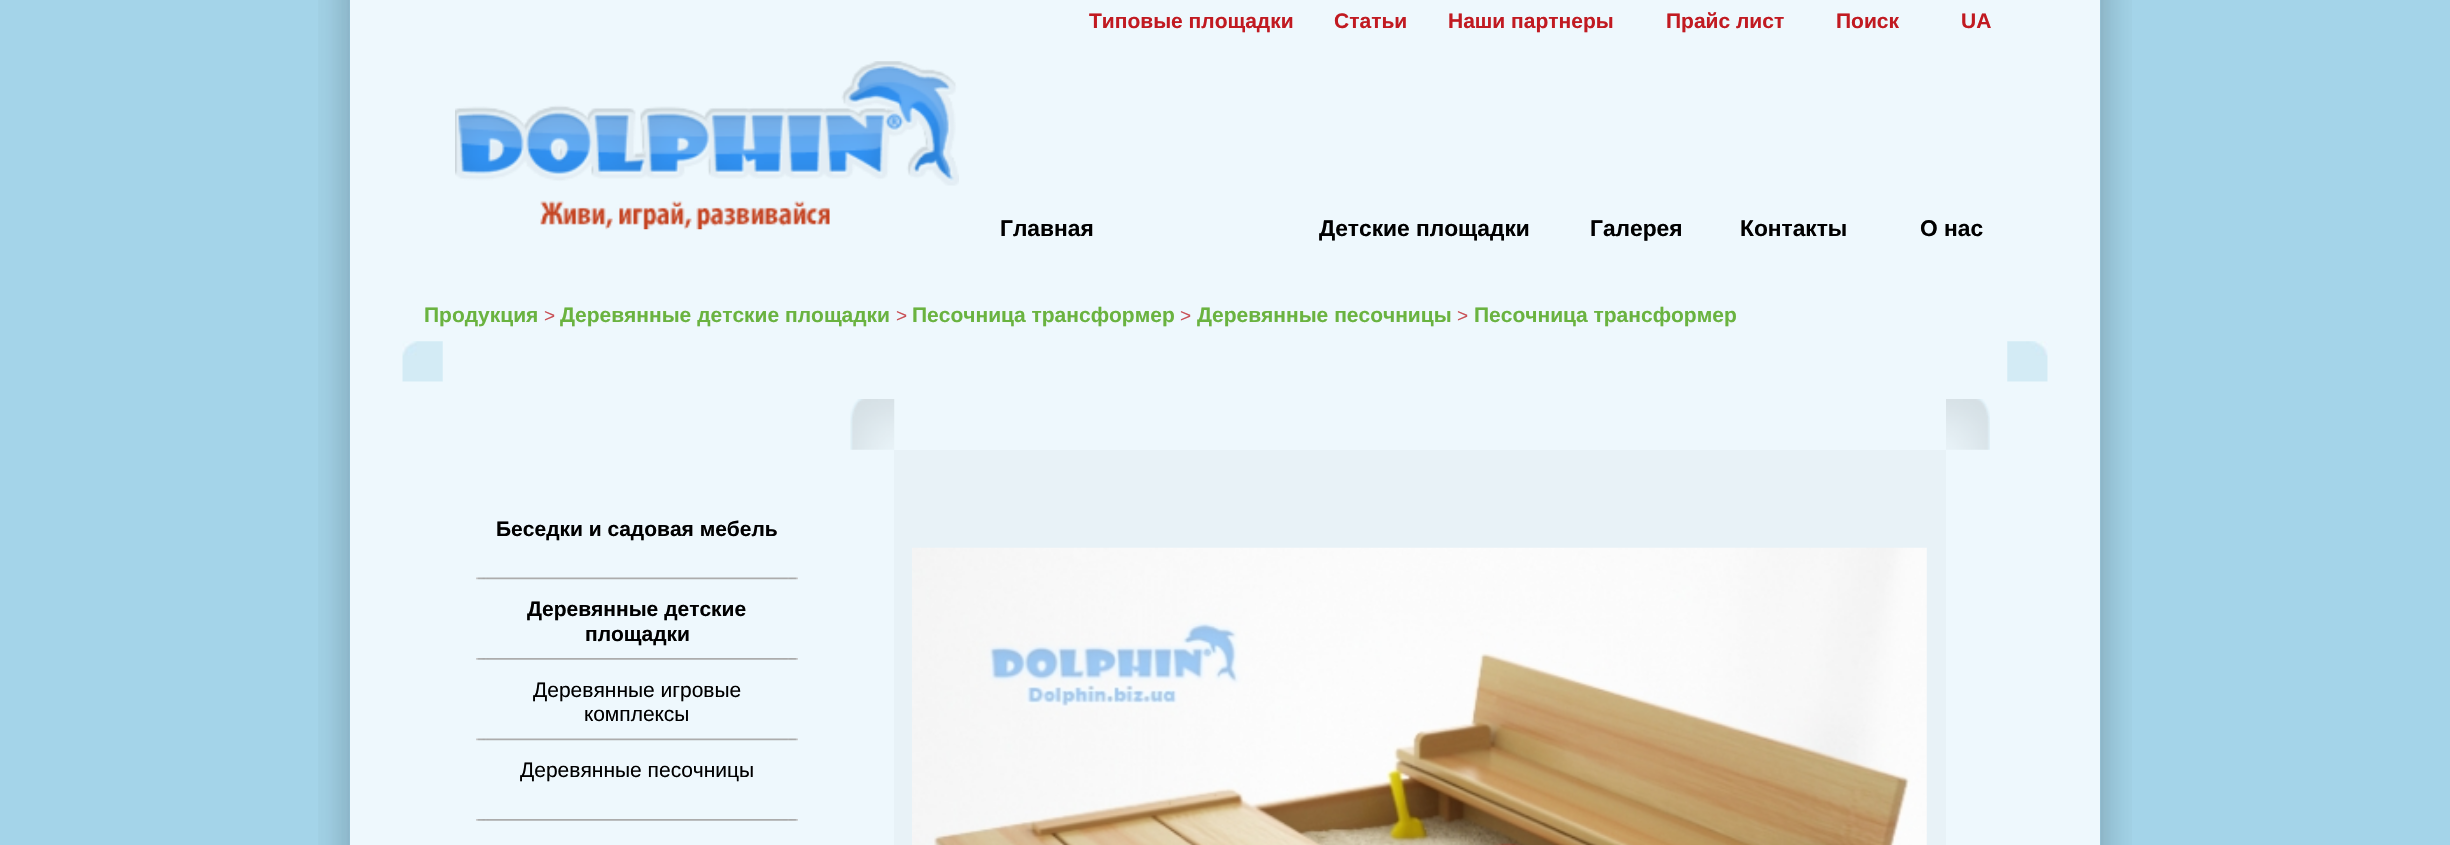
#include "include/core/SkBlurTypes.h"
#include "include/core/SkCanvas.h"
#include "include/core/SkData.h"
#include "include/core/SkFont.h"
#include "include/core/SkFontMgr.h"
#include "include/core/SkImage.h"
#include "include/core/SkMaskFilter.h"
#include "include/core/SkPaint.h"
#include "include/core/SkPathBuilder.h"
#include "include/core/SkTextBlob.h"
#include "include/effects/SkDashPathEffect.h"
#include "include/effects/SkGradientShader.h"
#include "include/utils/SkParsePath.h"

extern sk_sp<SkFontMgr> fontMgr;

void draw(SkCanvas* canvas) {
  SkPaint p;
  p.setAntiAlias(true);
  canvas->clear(SkColorSetRGB(164, 212, 233));
  canvas->drawImageRect(SkImages::DeferredFromEncodedData(SkData::MakeFromFileName("images/1.png")), SkRect::MakeLTRB(318, 0, 2132, 845), SkSamplingOptions());
  p.setColor(SkColorSetRGB(238, 248, 253));
  canvas->drawRect(SkRect::MakeLTRB(350, 0, 2100, 845), p);
  canvas->drawImageRect(SkImages::DeferredFromEncodedData(SkData::MakeFromFileName("images/2.png")), SkRect::MakeLTRB(455, 61, 959, 186), SkSamplingOptions());
  canvas->drawImageRect(SkImages::DeferredFromEncodedData(SkData::MakeFromFileName("images/3.png")), SkRect::MakeLTRB(540, 200, 830, 230), SkSamplingOptions());
  canvas->drawImageRect(SkImages::DeferredFromEncodedData(SkData::MakeFromFileName("images/4.png")), SkRect::MakeLTRB(402, 341, 443, 382), SkSamplingOptions());
  canvas->drawImageRect(SkImages::DeferredFromEncodedData(SkData::MakeFromFileName("images/5.png")), SkRect::MakeLTRB(2007, 341, 2048, 382), SkSamplingOptions());
  canvas->drawImageRect(SkImages::DeferredFromEncodedData(SkData::MakeFromFileName("images/6.png")), SkRect::MakeLTRB(476, 577, 798, 580), SkSamplingOptions());
  canvas->drawImageRect(SkImages::DeferredFromEncodedData(SkData::MakeFromFileName("images/7.png")), SkRect::MakeLTRB(476, 658, 798, 660), SkSamplingOptions());
  canvas->drawImageRect(SkImages::DeferredFromEncodedData(SkData::MakeFromFileName("images/6.png")), SkRect::MakeLTRB(476, 738, 798, 741), SkSamplingOptions());
  canvas->drawImageRect(SkImages::DeferredFromEncodedData(SkData::MakeFromFileName("images/7.png")), SkRect::MakeLTRB(476, 819, 798, 821), SkSamplingOptions());
  canvas->drawImageRect(SkImages::DeferredFromEncodedData(SkData::MakeFromFileName("images/8.png")), SkRect::MakeLTRB(850, 399, 895, 450), SkSamplingOptions());
  canvas->drawImageRect(SkImages::DeferredFromEncodedData(SkData::MakeFromFileName("images/9.png")), SkRect::MakeLTRB(1946, 399, 1990, 450), SkSamplingOptions());
  p.setColor(SkColorSetRGB(232, 242, 247));
  canvas->drawRect(SkRect::MakeLTRB(894, 450, 1946, 845), p);
  canvas->drawImageRect(SkImages::DeferredFromEncodedData(SkData::MakeFromFileName("images/10.png")), SkRect::MakeLTRB(912, 547, 1927, 845), SkSamplingOptions());
  SkFont font1(fontMgr->matchFamilyStyle("Liberation Sans", SkFontStyle::Bold()), 21);
  font1.setSubpixel(true);
  p.setColor(SkColorSetRGB(193, 26, 33));
  canvas->drawString("Типовые площадки", 1089, 28, font1, p);
  canvas->drawString("Статьи", 1334, 28, font1, p);
  canvas->drawString("Наши партнеры", 1448, 28, font1, p);
  canvas->drawString("Прайс лист", 1666, 28, font1, p);
  canvas->drawString("Поиск", 1836, 28, font1, p);
  canvas->drawString("UA", 1961, 28, font1, p);
  SkFont font2(fontMgr->matchFamilyStyle("Liberation Sans", SkFontStyle::Bold()), 22.75f);
  font2.setSubpixel(true);
  p.setColor(SK_ColorBLACK);
  canvas->drawString("Главная", 1000, 236, font2, p);
  canvas->drawString("Детские площадки", 1319, 236, font2, p);
  canvas->drawString("Галерея", 1590, 236, font2, p);
  canvas->drawString("Контакты", 1740, 236, font2, p);
  canvas->drawString("О нас", 1920, 236, font2, p);
  p.setColor(SkColorSetRGB(106, 179, 64));
  canvas->drawString("Продукция", 424, 322, font1, p);
  SkFont font3(fontMgr->matchFamilyStyle("Liberation Sans", SkFontStyle::Normal()), 19);
  font3.setSubpixel(true);
  p.setColor(SkColorSetRGB(201, 80, 86));
  canvas->drawString(">", 544, 322, font3, p);
  p.setColor(SkColorSetRGB(106, 179, 64));
  canvas->drawString("Деревянные детские площадки", 560, 322, font1, p);
  p.setColor(SkColorSetRGB(201, 80, 86));
  canvas->drawString(">", 896, 322, font3, p);
  p.setColor(SkColorSetRGB(106, 179, 64));
  canvas->drawString("Песочница трансформер", 912, 322, font1, p);
  p.setColor(SkColorSetRGB(201, 80, 86));
  canvas->drawString(">", 1180, 322, font3, p);
  p.setColor(SkColorSetRGB(106, 179, 64));
  canvas->drawString("Деревянные песочницы", 1197, 322, font1, p);
  p.setColor(SkColorSetRGB(201, 80, 86));
  canvas->drawString(">", 1457, 322, font3, p);
  p.setColor(SkColorSetRGB(106, 179, 64));
  canvas->drawString("Песочница трансформер", 1474, 322, font1, p);
  p.setColor(SK_ColorBLACK);
  canvas->drawString("Беседки и садовая мебель", 496, 536, font1, p);
  canvas->drawString("Деревянные детские", 527, 616, font1, p);
  canvas->drawString("площадки", 585, 641, font1, p);
  SkFont font4(fontMgr->matchFamilyStyle("Liberation Sans", SkFontStyle::Normal()), 21);
  font4.setSubpixel(true);
  canvas->drawString("Деревянные игровые", 533, 697, font4, p);
  canvas->drawString("комплексы", 584, 721, font4, p);
  canvas->drawString("Деревянные песочницы", 520, 777, font4, p);
}
